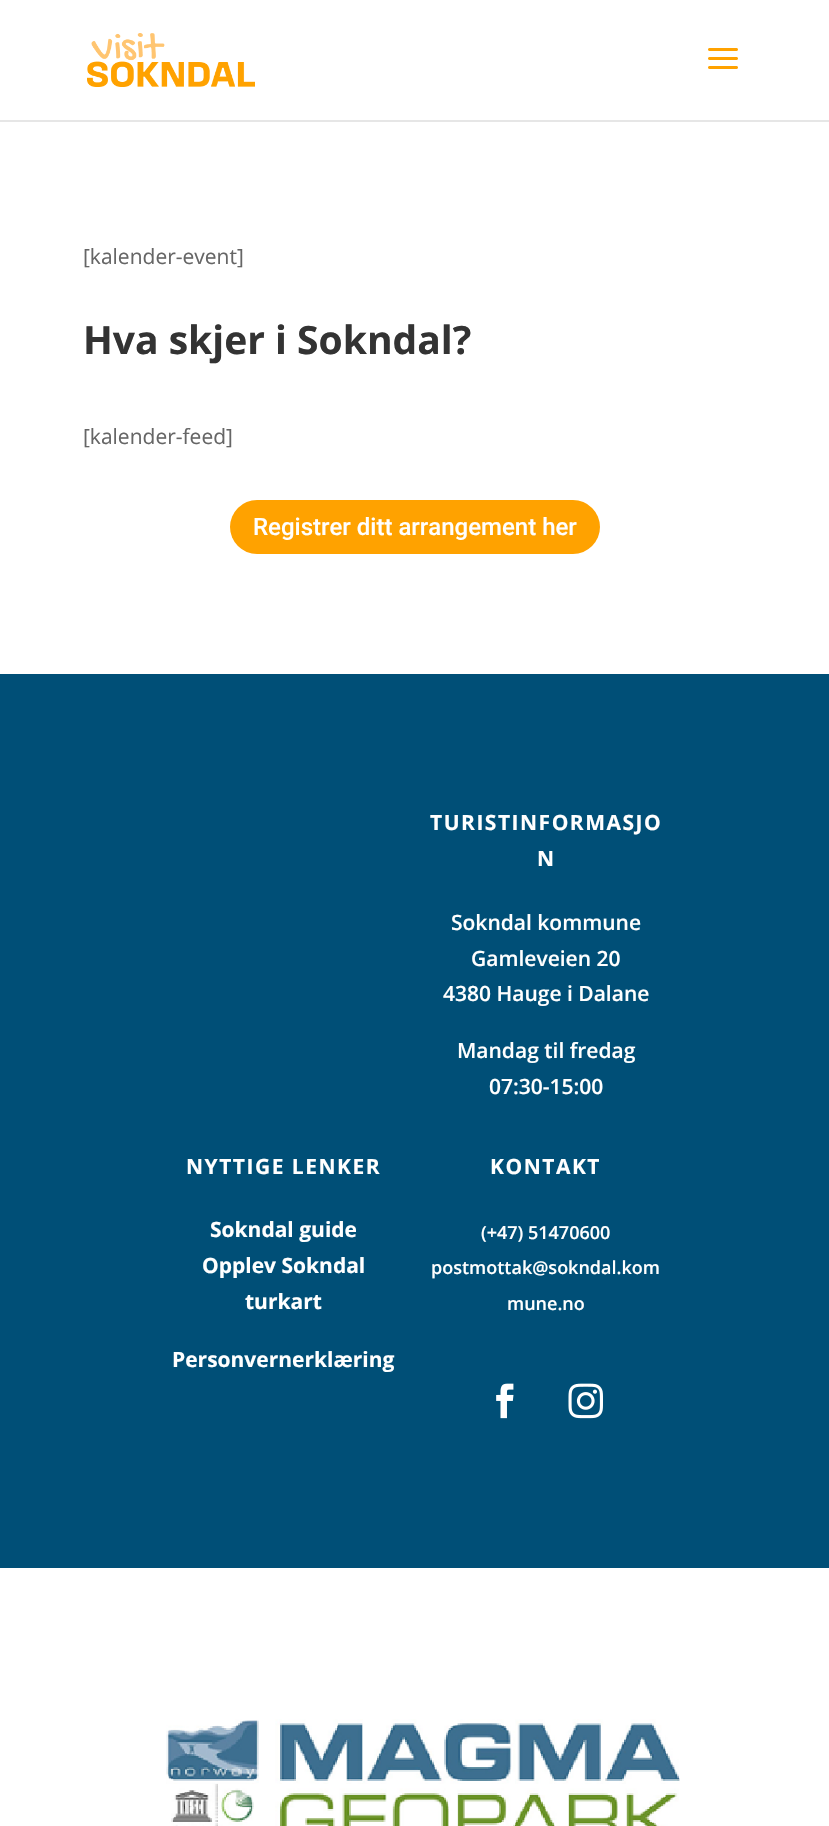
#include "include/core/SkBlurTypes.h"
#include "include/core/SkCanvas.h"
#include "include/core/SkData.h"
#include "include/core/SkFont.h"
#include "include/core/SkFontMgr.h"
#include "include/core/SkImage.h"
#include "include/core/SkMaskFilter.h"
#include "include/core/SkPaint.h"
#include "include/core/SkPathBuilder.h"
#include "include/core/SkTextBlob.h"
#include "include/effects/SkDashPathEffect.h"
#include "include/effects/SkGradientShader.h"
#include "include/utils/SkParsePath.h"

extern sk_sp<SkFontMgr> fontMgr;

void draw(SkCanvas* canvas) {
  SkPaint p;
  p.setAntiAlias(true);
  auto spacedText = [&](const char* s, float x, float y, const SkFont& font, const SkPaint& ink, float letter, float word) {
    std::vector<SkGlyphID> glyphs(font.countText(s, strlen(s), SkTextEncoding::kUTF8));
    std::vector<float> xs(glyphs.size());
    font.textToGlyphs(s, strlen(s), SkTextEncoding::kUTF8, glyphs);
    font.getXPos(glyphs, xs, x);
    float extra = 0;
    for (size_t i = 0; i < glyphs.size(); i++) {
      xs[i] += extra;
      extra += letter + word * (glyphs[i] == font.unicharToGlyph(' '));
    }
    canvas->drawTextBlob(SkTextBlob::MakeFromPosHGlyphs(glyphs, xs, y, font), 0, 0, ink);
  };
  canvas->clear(SK_ColorWHITE);
  p.setColor(SkColorSetRGB(230, 230, 230));
  canvas->drawPath(SkPathBuilder().moveTo(0, 120).lineTo(0, 122).lineTo(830, 122).lineTo(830, 2).lineTo(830, 120).close().detach(), p);
  canvas->drawImageRect(SkImages::DeferredFromEncodedData(SkData::MakeFromFileName("images/1.png")), SkRect::MakeLTRB(87, 33, 255, 87), SkSamplingOptions());
  canvas->drawImageRect(SkImages::DeferredFromEncodedData(SkData::MakeFromFileName("images/2.png")), SkRect::MakeLTRB(708, 48, 738, 69), SkSamplingOptions());
  p.setColor(SkColorSetRGB(255, 162, 0));
  canvas->drawRoundRect(SkRect::MakeLTRB(230, 500, 600, 554), 27, 27, p);
  p.setColor(SkColorSetRGB(0, 79, 119));
  canvas->drawRect(SkRect::MakeLTRB(0, 674, 829, 1568), p);
  canvas->drawImageRect(SkImages::DeferredFromEncodedData(SkData::MakeFromFileName("images/3.png")), SkRect::MakeLTRB(496, 1383, 514, 1419), SkSamplingOptions());
  canvas->drawImageRect(SkImages::DeferredFromEncodedData(SkData::MakeFromFileName("images/4.png")), SkRect::MakeLTRB(568, 1383, 603, 1419), SkSamplingOptions());
  canvas->drawImageRect(SkImages::DeferredFromEncodedData(SkData::MakeFromFileName("images/5.png")), SkRect::MakeLTRB(166, 1719, 680, 1826), SkSamplingOptions());
  SkFont font1(fontMgr->matchFamilyStyle("Open Sans", SkFontStyle::Normal()), 21);
  font1.setSubpixel(true);
  p.setColor(SkColorSetRGB(102, 102, 102));
  canvas->drawString("[kalender-event]", 83, 264, font1, p);
  SkFont font2(fontMgr->matchFamilyStyle("Open Sans", SkFontStyle::Bold()), 39);
  font2.setSubpixel(true);
  p.setColor(SkColorSetRGB(51, 51, 51));
  canvas->drawString("Hva skjer i Sokndal?", 83, 354, font2, p);
  p.setColor(SkColorSetRGB(102, 102, 102));
  canvas->drawString("[kalender-feed]", 83, 444, font1, p);
  SkFont font3(fontMgr->matchFamilyStyle("Roboto", SkFontStyle(500, SkFontStyle::kNormal_Width, SkFontStyle::kUpright_Slant)), 24);
  font3.setSubpixel(true);
  p.setColor(SK_ColorWHITE);
  canvas->drawString("Registrer ditt arrangement her", 253, 535, font3, p);
  SkFont font4(fontMgr->matchFamilyStyle("Open Sans", SkFontStyle::Bold()), 21);
  font4.setSubpixel(true);
  spacedText("TURISTINFORMASJO", 430, 830, font4, p, 1.5f, 0);
  spacedText("N", 537, 866, font4, p, 1.5f, 0);
  SkFont font5(fontMgr->matchFamilyStyle("Open Sans", SkFontStyle(600, SkFontStyle::kNormal_Width, SkFontStyle::kUpright_Slant)), 21);
  font5.setSubpixel(true);
  canvas->drawString("Sokndal kommune", 451, 930, font5, p);
  canvas->drawString("Gamleveien 20", 471, 966, font5, p);
  canvas->drawString("4380 Hauge i Dalane", 443, 1001, font5, p);
  canvas->drawString("Mandag til fredag", 457, 1058, font5, p);
  canvas->drawString("07:30-15:00", 489, 1094, font5, p);
  spacedText("NYTTIGE LENKER", 186, 1174, font4, p, 1.5f, 0);
  canvas->drawString("Sokndal guide", 210, 1237, font4, p);
  canvas->drawString("Opplev Sokndal", 202, 1273, font4, p);
  canvas->drawString("turkart", 245, 1309, font4, p);
  canvas->drawString("Personvernerklæring", 172, 1367, font4, p);
  spacedText("KONTAKT", 490, 1174, font4, p, 1.5f, 0);
  SkFont font6(fontMgr->matchFamilyStyle("Open Sans", SkFontStyle(600, SkFontStyle::kNormal_Width, SkFontStyle::kUpright_Slant)), 18);
  font6.setSubpixel(true);
  canvas->drawString("(+47) 51470600", 481, 1239, font6, p);
  canvas->drawString("postmottak@sokndal.kom", 431, 1274, font6, p);
  canvas->drawString("mune.no", 507, 1310, font6, p);
}
